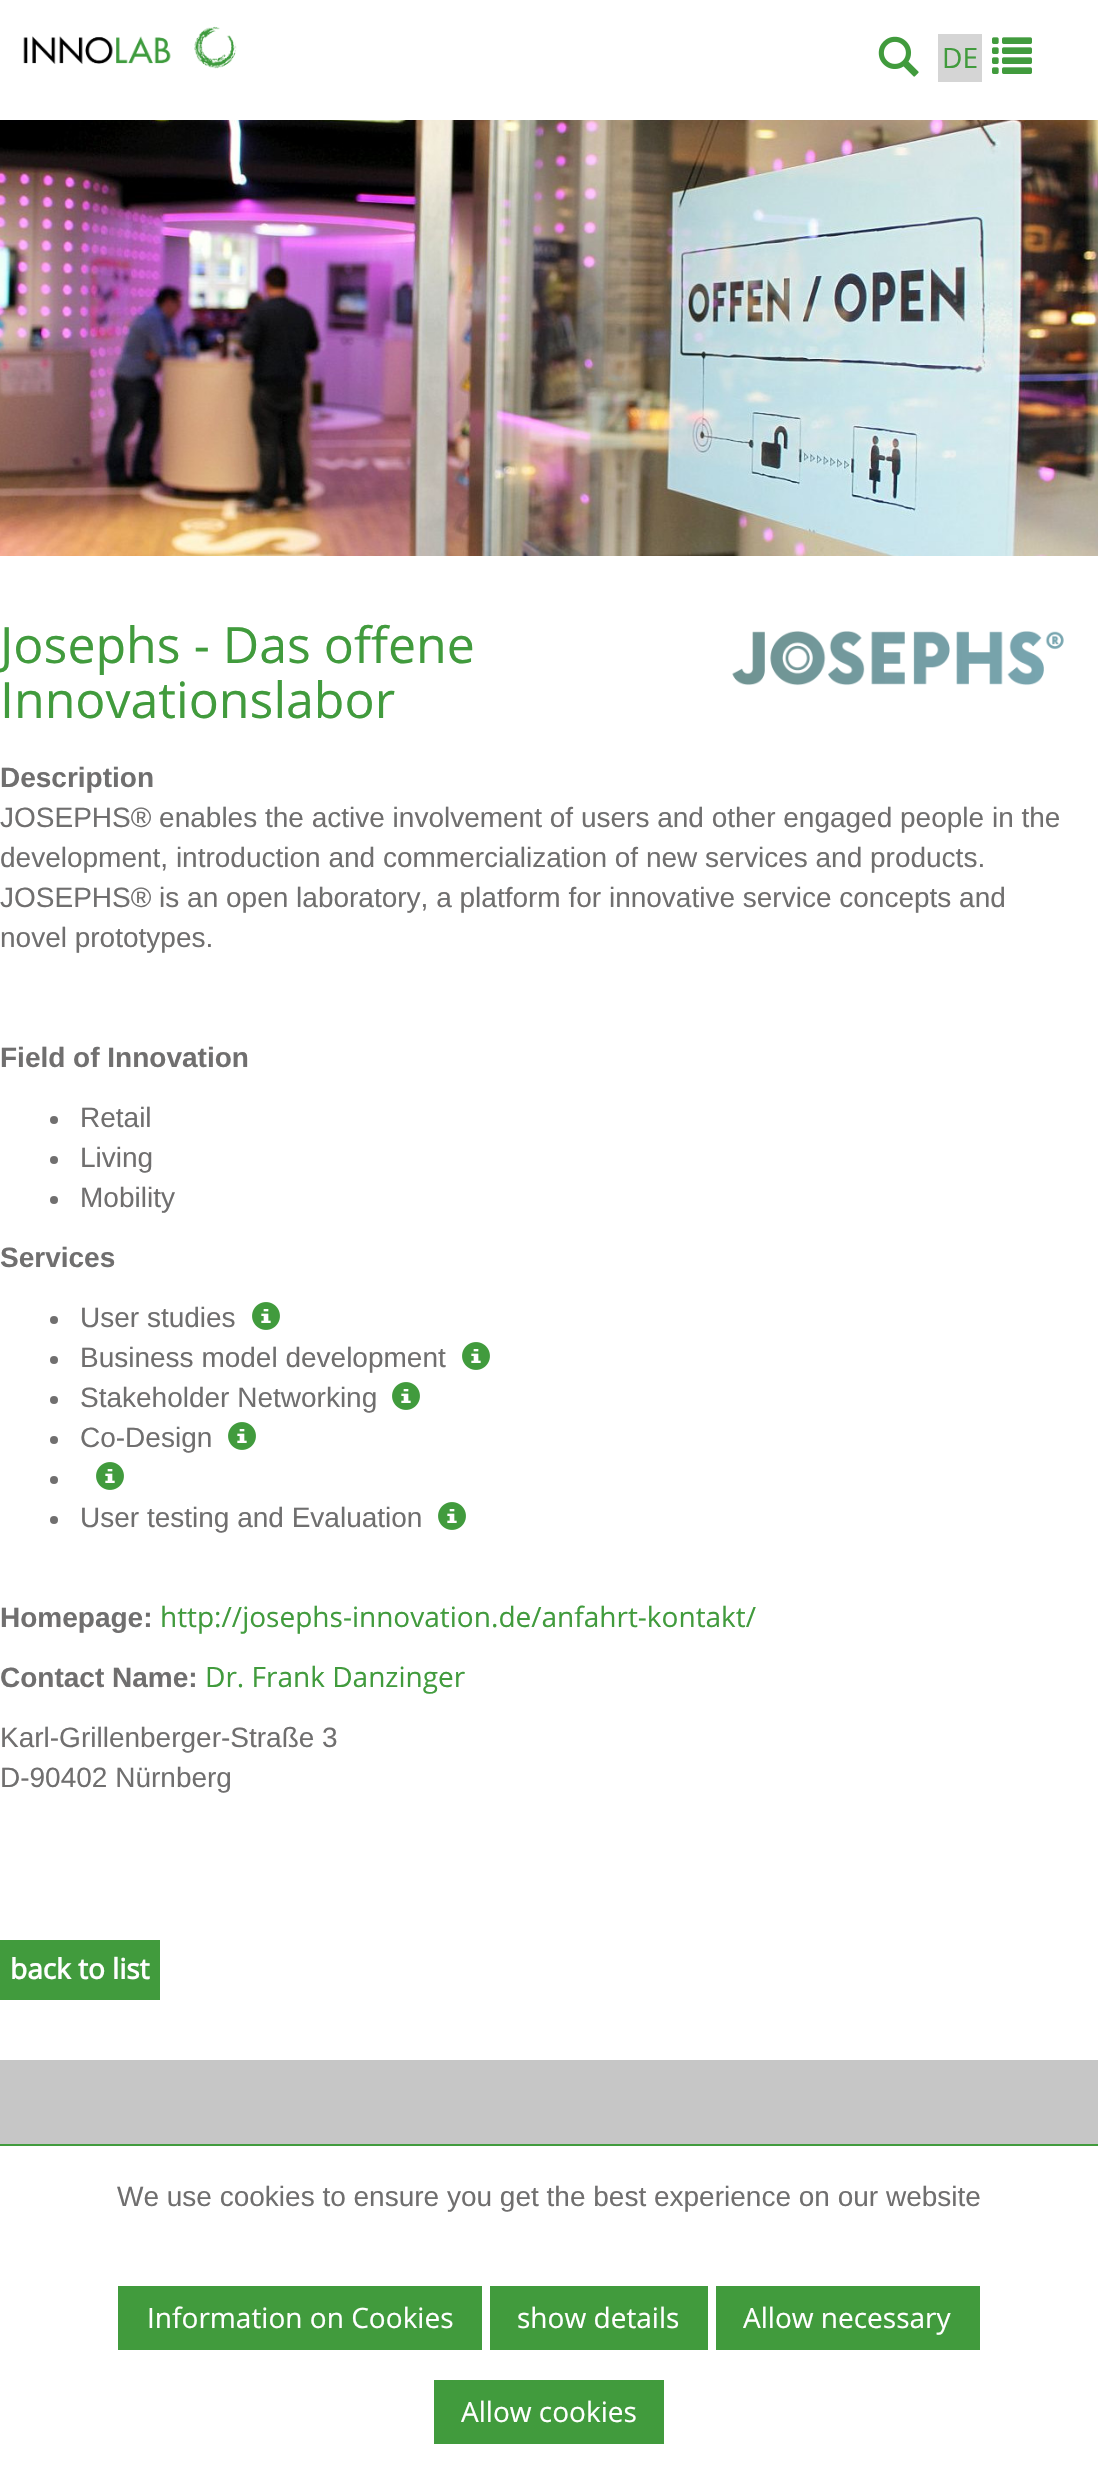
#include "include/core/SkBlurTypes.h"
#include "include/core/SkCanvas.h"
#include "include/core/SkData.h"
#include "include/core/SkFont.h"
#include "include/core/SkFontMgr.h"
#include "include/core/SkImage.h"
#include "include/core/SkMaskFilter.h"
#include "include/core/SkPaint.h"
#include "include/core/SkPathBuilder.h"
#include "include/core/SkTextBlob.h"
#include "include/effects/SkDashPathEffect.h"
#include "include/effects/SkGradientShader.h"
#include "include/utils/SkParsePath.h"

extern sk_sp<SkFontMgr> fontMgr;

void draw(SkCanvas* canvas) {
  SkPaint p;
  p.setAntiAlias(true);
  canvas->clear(SkColorSetRGB(198, 198, 198));
  p.setColor(SK_ColorWHITE);
  canvas->drawRect(SkRect::MakeLTRB(0, 0, 1098, 2060), p);
  canvas->drawImageRect(SkImages::DeferredFromEncodedData(SkData::MakeFromFileName("images/1.png")), SkRect::MakeLTRB(23, 26, 237, 69), SkSamplingOptions());
  canvas->drawImageRect(SkImages::DeferredFromEncodedData(SkData::MakeFromFileName("images/2.png")), SkRect::MakeLTRB(878, 36, 919, 77), SkSamplingOptions());
  p.setColor(SkColorSetRGB(213, 213, 213));
  canvas->drawRect(SkRect::MakeLTRB(938, 34, 982, 82), p);
  canvas->drawImageRect(SkImages::DeferredFromEncodedData(SkData::MakeFromFileName("images/3.png")), SkRect::MakeLTRB(992, 37, 1032, 74), SkSamplingOptions());
  canvas->drawImageRect(SkImages::DeferredFromEncodedData(SkData::MakeFromFileName("images/4.png")), SkRect::MakeLTRB(0, 120, 1098, 556), SkSamplingOptions());
  canvas->drawImageRect(SkImages::DeferredFromEncodedData(SkData::MakeFromFileName("images/5.png")), SkRect::MakeLTRB(732, 631, 1064, 686), SkSamplingOptions());
  p.setColor(SkColorSetRGB(112, 111, 111));
  canvas->drawCircle(54, 1120, 4, p);
  canvas->drawCircle(54, 1160, 4, p);
  canvas->drawCircle(54, 1200, 4, p);
  canvas->drawCircle(54, 1320, 4, p);
  canvas->drawImageRect(SkImages::DeferredFromEncodedData(SkData::MakeFromFileName("images/6.png")), SkRect::MakeLTRB(252, 1302, 280, 1330), SkSamplingOptions());
  canvas->drawCircle(54, 1360, 4, p);
  canvas->drawImageRect(SkImages::DeferredFromEncodedData(SkData::MakeFromFileName("images/6.png")), SkRect::MakeLTRB(462, 1342, 490, 1370), SkSamplingOptions());
  canvas->drawCircle(54, 1400, 4, p);
  canvas->drawImageRect(SkImages::DeferredFromEncodedData(SkData::MakeFromFileName("images/6.png")), SkRect::MakeLTRB(392, 1382, 420, 1410), SkSamplingOptions());
  canvas->drawCircle(54, 1440, 4, p);
  canvas->drawImageRect(SkImages::DeferredFromEncodedData(SkData::MakeFromFileName("images/6.png")), SkRect::MakeLTRB(228, 1422, 256, 1450), SkSamplingOptions());
  canvas->drawCircle(54, 1480, 4, p);
  canvas->drawImageRect(SkImages::DeferredFromEncodedData(SkData::MakeFromFileName("images/6.png")), SkRect::MakeLTRB(96, 1462, 124, 1490), SkSamplingOptions());
  canvas->drawCircle(54, 1520, 4, p);
  canvas->drawImageRect(SkImages::DeferredFromEncodedData(SkData::MakeFromFileName("images/6.png")), SkRect::MakeLTRB(438, 1502, 466, 1530), SkSamplingOptions());
  p.setColor(SkColorSetRGB(65, 155, 61));
  canvas->drawRect(SkRect::MakeLTRB(0, 1940, 160, 2000), p);
  p.setColor(SK_ColorWHITE);
  canvas->drawRect(SkRect::MakeLTRB(0, 2146, 1098, 2474), p);
  p.setColor(SkColorSetRGB(65, 155, 61));
  canvas->drawRect(SkRect::MakeLTRB(0, 2144, 1098, 2146), p);
  canvas->drawRect(SkRect::MakeLTRB(118, 2286, 482, 2350), p);
  canvas->drawRect(SkRect::MakeLTRB(490, 2286, 708, 2350), p);
  canvas->drawRect(SkRect::MakeLTRB(716, 2286, 980, 2350), p);
  canvas->drawRect(SkRect::MakeLTRB(434, 2380, 664, 2444), p);
  SkFont font1(fontMgr->matchFamilyStyle("Open Sans", SkFontStyle::Normal()), 28);
  font1.setSubpixel(true);
  canvas->drawString("DE", 942, 68, font1, p);
  SkFont font2(fontMgr->matchFamilyStyle("Open Sans", SkFontStyle::Normal()), 50);
  font2.setSubpixel(true);
  canvas->drawString("Josephs - Das offene", 0, 663, font2, p);
  canvas->drawString("Innovationslabor", 0, 718, font2, p);
  SkFont font3(fontMgr->matchFamilyStyle("Liberation Sans", SkFontStyle::Bold()), 28);
  font3.setSubpixel(true);
  p.setColor(SkColorSetRGB(112, 111, 111));
  canvas->drawString("Description", 0, 787, font3, p);
  SkFont font4(fontMgr->matchFamilyStyle("Liberation Sans", SkFontStyle::Normal()), 28);
  font4.setSubpixel(true);
  canvas->drawString("JOSEPHS® enables the active involvement of users and other engaged people in the", 0, 827, font4, p);
  canvas->drawString("development, introduction and commercialization of new services and products.", 0, 867, font4, p);
  canvas->drawString("JOSEPHS® is an open laboratory, a platform for innovative service concepts and", 0, 907, font4, p);
  canvas->drawString("novel prototypes.", 0, 947, font4, p);
  canvas->drawString("Field of Innovation", 0, 1067, font3, p);
  canvas->drawString("Retail", 80, 1127, font4, p);
  canvas->drawString("Living", 80, 1167, font4, p);
  canvas->drawString("Mobility", 80, 1207, font4, p);
  canvas->drawString("Services", 0, 1267, font3, p);
  canvas->drawString("User studies", 80, 1327, font4, p);
  canvas->drawString("Business model development", 80, 1367, font4, p);
  canvas->drawString("Stakeholder Networking", 80, 1407, font4, p);
  canvas->drawString("Co-Design", 80, 1447, font4, p);
  canvas->drawString("User testing and Evaluation", 80, 1527, font4, p);
  canvas->drawString("Homepage:", 0, 1627, font3, p);
  p.setColor(SkColorSetRGB(65, 155, 61));
  canvas->drawString("http://josephs-innovation.de/anfahrt-kontakt/", 160, 1627, font1, p);
  p.setColor(SkColorSetRGB(112, 111, 111));
  canvas->drawString("Contact Name:", 0, 1687, font3, p);
  p.setColor(SkColorSetRGB(65, 155, 61));
  canvas->drawString("Dr. Frank Danzinger", 205, 1687, font1, p);
  p.setColor(SkColorSetRGB(112, 111, 111));
  canvas->drawString("Karl-Grillenberger-Straße 3", 0, 1747, font4, p);
  canvas->drawString("D-90402 Nürnberg", 0, 1787, font4, p);
  SkFont font5(fontMgr->matchFamilyStyle("Open Sans", SkFontStyle::Bold()), 28);
  font5.setSubpixel(true);
  p.setColor(SK_ColorWHITE);
  canvas->drawString("back to list", 10, 1979, font5, p);
  p.setColor(SkColorSetRGB(112, 111, 111));
  canvas->drawString("We use cookies to ensure you get the best experience on our website", 117, 2206, font4, p);
  p.setColor(SK_ColorWHITE);
  canvas->drawString("Information on Cookies", 147, 2328, font1, p);
  canvas->drawString("show details", 517, 2328, font1, p);
  canvas->drawString("Allow necessary", 743, 2328, font1, p);
  canvas->drawString("Allow cookies", 461, 2422, font1, p);
}
